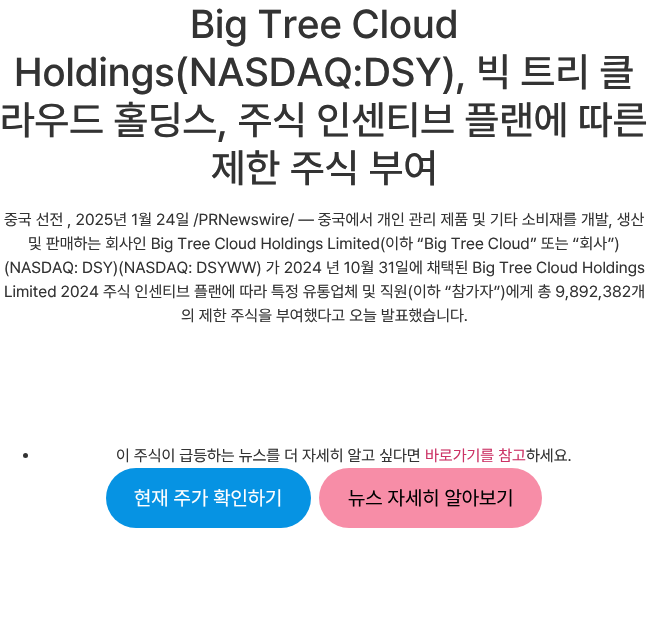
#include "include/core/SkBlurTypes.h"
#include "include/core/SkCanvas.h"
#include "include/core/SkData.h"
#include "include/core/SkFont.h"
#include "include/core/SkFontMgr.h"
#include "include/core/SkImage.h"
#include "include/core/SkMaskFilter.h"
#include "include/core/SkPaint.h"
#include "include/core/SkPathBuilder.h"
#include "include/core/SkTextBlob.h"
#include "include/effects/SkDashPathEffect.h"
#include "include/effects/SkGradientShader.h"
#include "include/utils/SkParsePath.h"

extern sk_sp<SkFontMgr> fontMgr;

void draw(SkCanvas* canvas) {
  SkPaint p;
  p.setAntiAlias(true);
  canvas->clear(SK_ColorWHITE);
  p.setColor(SkColorSetRGB(51, 51, 51));
  canvas->drawCircle(25.5f, 455.5f, 2.5f, p);
  p.setColor(SkColorSetRGB(6, 147, 227));
  canvas->drawRoundRect(SkRect::MakeLTRB(106, 468, 311, 528), 30, 30, p);
  p.setColor(SkColorSetRGB(247, 141, 167));
  canvas->drawRoundRect(SkRect::MakeLTRB(319, 468, 542, 528), 30, 30, p);
  SkFont font1(fontMgr->matchFamilyStyle("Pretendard", SkFontStyle(500, SkFontStyle::kNormal_Width, SkFontStyle::kUpright_Slant)), 40);
  font1.setSubpixel(true);
  p.setColor(SkColorSetRGB(51, 51, 51));
  canvas->drawString("Big Tree Cloud", 190, 38, font1, p);
  canvas->drawString("Holdings(NASDAQ:DSY), 빅 트리 클", 14, 86, font1, p);
  canvas->drawString("라우드 홀딩스, 주식 인센티브 플랜에 따른", 0, 134, font1, p);
  canvas->drawString("제한 주식 부여", 211, 182, font1, p);
  SkFont font2(fontMgr->matchFamilyStyle("Pretendard", SkFontStyle::Normal()), 16);
  font2.setSubpixel(true);
  canvas->drawString("중국 선전 , 2025년 1월 24일 /PRNewswire/ — 중국에서 개인 관리 제품 및 기타 소비재를 개발, 생산", 4, 225, font2, p);
  canvas->drawString("및 판매하는 회사인 Big Tree Cloud Holdings Limited(이하 “Big Tree Cloud” 또는 “회사”)", 28, 249, font2, p);
  canvas->drawString("(NASDAQ: DSY)(NASDAQ: DSYWW) 가 2024 년 10월 31일에 채택된 Big Tree Cloud Holdings", 4, 273, font2, p);
  canvas->drawString("Limited 2024 주식 인센티브 플랜에 따라 특정 유통업체 및 직원(이하 “참가자”)에게 총 9,892,382개", 4, 297, font2, p);
  canvas->drawString("의 제한 주식을 부여했다고 오늘 발표했습니다.", 181, 321, font2, p);
  canvas->drawString("이 주식이 급등하는 뉴스를 더 자세히 알고 싶다면", 116, 461, font2, p);
  p.setColor(SkColorSetRGB(204, 51, 102));
  canvas->drawString("바로가기를 참고", 425, 461, font2, p);
  p.setColor(SkColorSetRGB(51, 51, 51));
  canvas->drawString("하세요.", 526, 461, font2, p);
  SkFont font3(fontMgr->matchFamilyStyle("Pretendard", SkFontStyle::Normal()), 20);
  font3.setSubpixel(true);
  p.setColor(SK_ColorWHITE);
  canvas->drawString("현재 주가 확인하기", 134, 505, font3, p);
  p.setColor(SK_ColorBLACK);
  canvas->drawString("뉴스 자세히 알아보기", 348, 505, font3, p);
}
